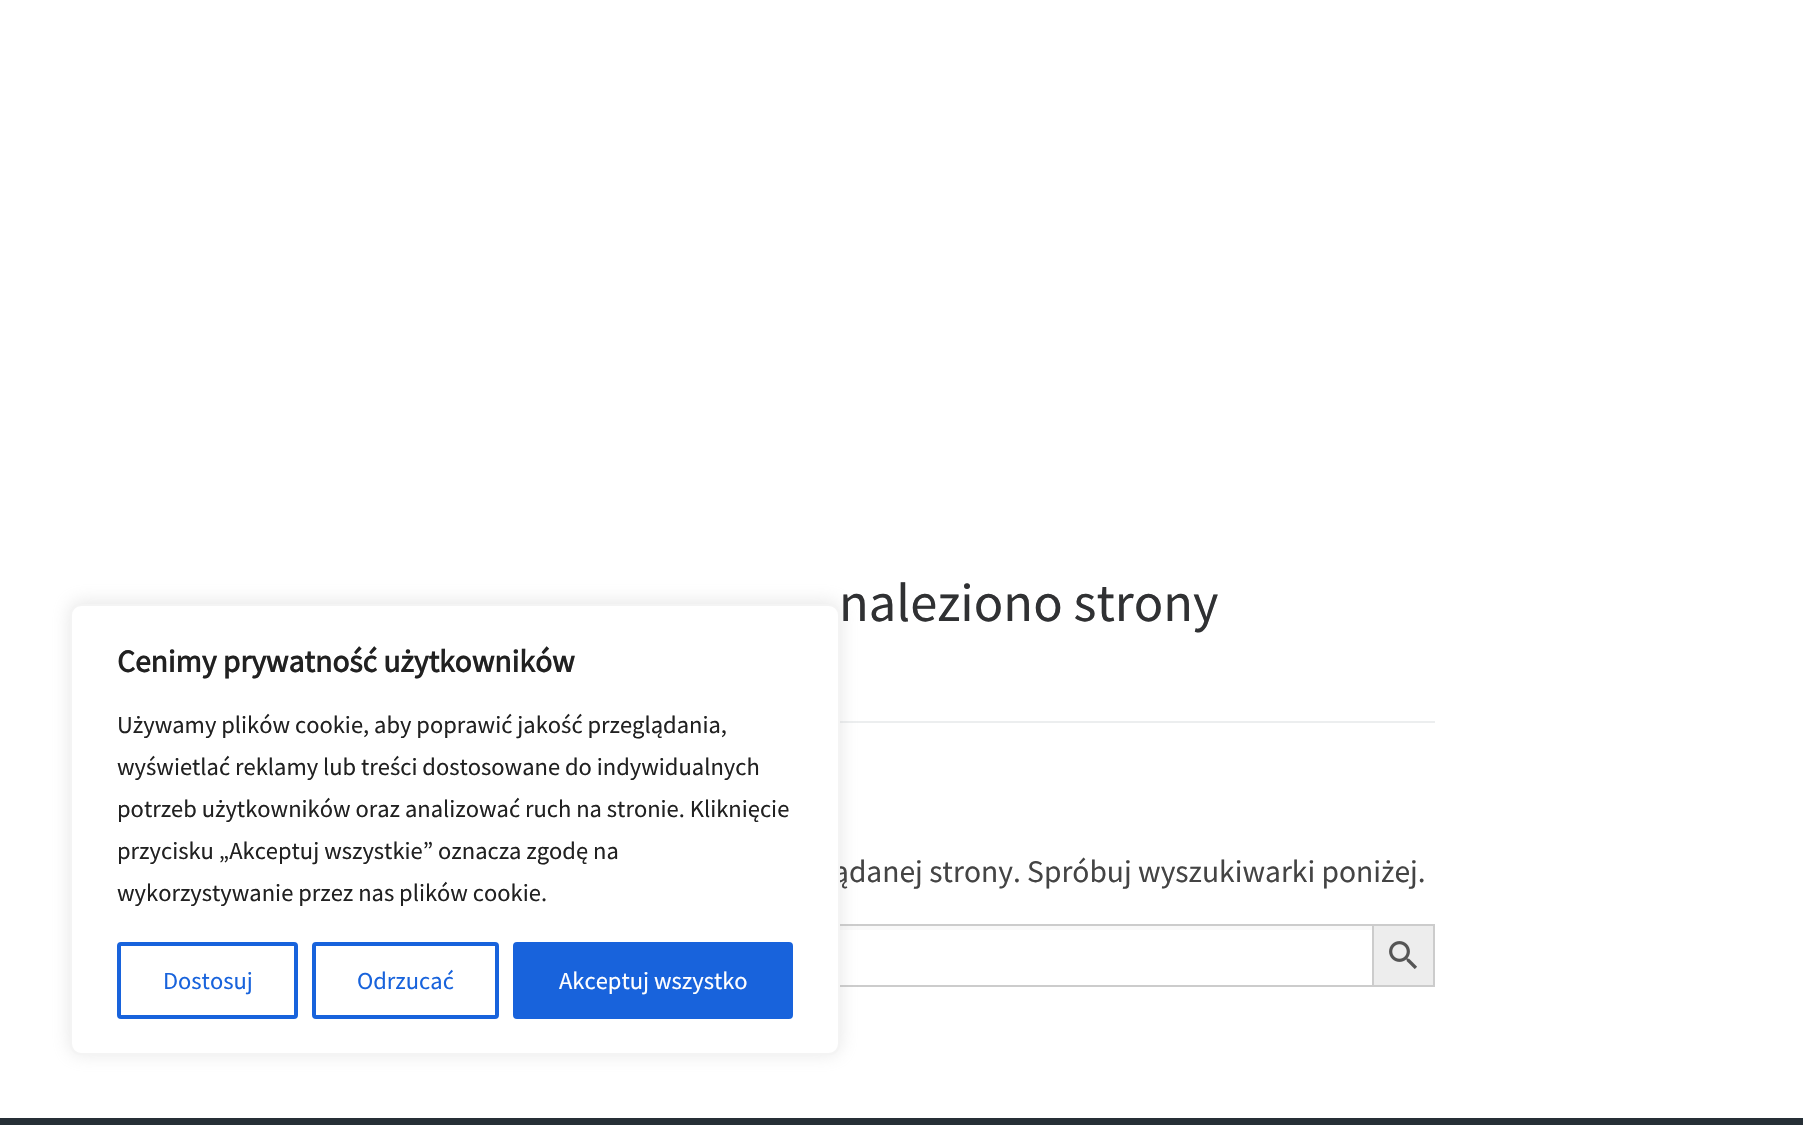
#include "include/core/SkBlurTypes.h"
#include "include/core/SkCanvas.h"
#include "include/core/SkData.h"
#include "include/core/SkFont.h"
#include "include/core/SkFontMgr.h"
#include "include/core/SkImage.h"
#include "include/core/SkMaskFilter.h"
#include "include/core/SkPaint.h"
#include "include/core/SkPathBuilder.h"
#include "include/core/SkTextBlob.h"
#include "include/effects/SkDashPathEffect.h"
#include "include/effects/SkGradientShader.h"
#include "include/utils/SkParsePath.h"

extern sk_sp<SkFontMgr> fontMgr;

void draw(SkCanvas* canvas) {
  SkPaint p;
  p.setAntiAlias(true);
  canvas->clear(SK_ColorWHITE);
  p.setColor(SkColorSetRGB(236, 238, 239));
  canvas->drawRect(SkRect::MakeLTRB(840, 721, 1435, 723), p);
  p.setColor(SkColorSetRGB(249, 249, 249));
  canvas->drawRect(SkRect::MakeLTRB(840, 926, 1372, 930), p);
  p.setColor(SkColorSetRGB(204, 204, 204));
  canvas->drawRect(SkRect::MakeLTRB(840, 924, 1372, 926), p);
  canvas->drawRect(SkRect::MakeLTRB(840, 985, 1372, 987), p);
  p.setColor(SkColorSetARGB(77, 172, 171, 171));
  p.setMaskFilter(SkMaskFilter::MakeBlur(kNormal_SkBlurStyle, 9));
  canvas->drawRoundRect(SkRect::MakeLTRB(70, 602, 840, 1054), 11, 11, p);
  p.setMaskFilter(nullptr);
  p.setColor(SkColorSetRGB(237, 237, 237));
  canvas->drawRect(SkRect::MakeLTRB(1373, 925, 1434, 986), p);
  p.setStyle(SkPaint::kStroke_Style);
  p.setStrokeWidth(2);
  p.setColor(SkColorSetRGB(204, 204, 204));
  canvas->drawRect(SkRect::MakeLTRB(1373, 925, 1434, 986), p);
  canvas->drawImageRect(SkImages::DeferredFromEncodedData(SkData::MakeFromFileName("images/1.png")), SkRect::MakeLTRB(1389, 941, 1417, 969), SkSamplingOptions());
  p.setStyle(SkPaint::kFill_Style);
  p.setColor(SkColorSetRGB(38, 47, 54));
  canvas->drawRect(SkRect::MakeLTRB(0, 1118, 1803, 1125), p);
  SkFont font1(fontMgr->matchFamilyStyle("Source Sans Pro", SkFontStyle::Normal()), 54.5f);
  font1.setSubpixel(true);
  p.setColor(SkColorSetRGB(48, 49, 51));
  canvas->drawString("naleziono strony", 839, 621, font1, p);
  SkFont font2(fontMgr->matchFamilyStyle("Source Sans Pro", SkFontStyle::Normal()), 31.5f);
  font2.setSubpixel(true);
  p.setColor(SkColorSetRGB(68, 68, 68));
  canvas->drawString("ądanej strony. Spróbuj wyszukiwarki poniżej.", 833, 882, font2, p);
  p.setColor(SK_ColorWHITE);
  canvas->drawRoundRect(SkRect::MakeLTRB(71, 605, 839, 1054), 10, 10, p);
  p.setStyle(SkPaint::kStroke_Style);
  p.setColor(SkColorSetRGB(244, 244, 244));
  canvas->drawRoundRect(SkRect::MakeLTRB(71, 605, 839, 1054), 10, 10, p);
  p.setStyle(SkPaint::kFill_Style);
  p.setColor(SkColorSetRGB(24, 99, 220));
  canvas->drawRoundRect(SkRect::MakeLTRB(515, 944, 791, 1017), 2, 2, p);
  p.setStyle(SkPaint::kStroke_Style);
  p.setStrokeWidth(4);
  canvas->drawRoundRect(SkRect::MakeLTRB(515, 944, 791, 1017), 2, 2, p);
  SkFont font3(fontMgr->matchFamilyStyle("Source Sans Pro", SkFontStyle::Normal()), 24.5f);
  font3.setSubpixel(true);
  p.setStyle(SkPaint::kFill_Style);
  p.setColor(SK_ColorWHITE);
  canvas->drawString("Akceptuj wszystko", 559, 989, font3, p);
  p.setStyle(SkPaint::kStroke_Style);
  p.setColor(SkColorSetRGB(24, 99, 220));
  canvas->drawRoundRect(SkRect::MakeLTRB(314, 944, 497, 1017), 2, 2, p);
  p.setStyle(SkPaint::kFill_Style);
  canvas->drawString("Odrzucać", 357, 989, font3, p);
  p.setStyle(SkPaint::kStroke_Style);
  canvas->drawRoundRect(SkRect::MakeLTRB(119, 944, 296, 1017), 2, 2, p);
  p.setStyle(SkPaint::kFill_Style);
  canvas->drawString("Dostosuj", 163, 989, font3, p);
  p.setColor(SkColorSetRGB(33, 33, 33));
  canvas->drawString("wykorzystywanie przez nas plików cookie.", 117, 901, font3, p);
  canvas->drawString("przycisku „Akceptuj wszystkie” oznacza zgodę na", 117, 859, font3, p);
  canvas->drawString("potrzeb użytkowników oraz analizować ruch na stronie. Kliknięcie", 117, 817, font3, p);
  canvas->drawString("wyświetlać reklamy lub treści dostosowane do indywidualnych", 117, 775, font3, p);
  canvas->drawString("Używamy plików cookie, aby poprawić jakość przeglądania,", 117, 733, font3, p);
  SkFont font4(fontMgr->matchFamilyStyle("Source Sans Pro", SkFontStyle::Bold()), 31.5f);
  font4.setSubpixel(true);
  canvas->drawString("Cenimy prywatność użytkowników", 117, 672, font4, p);
}
